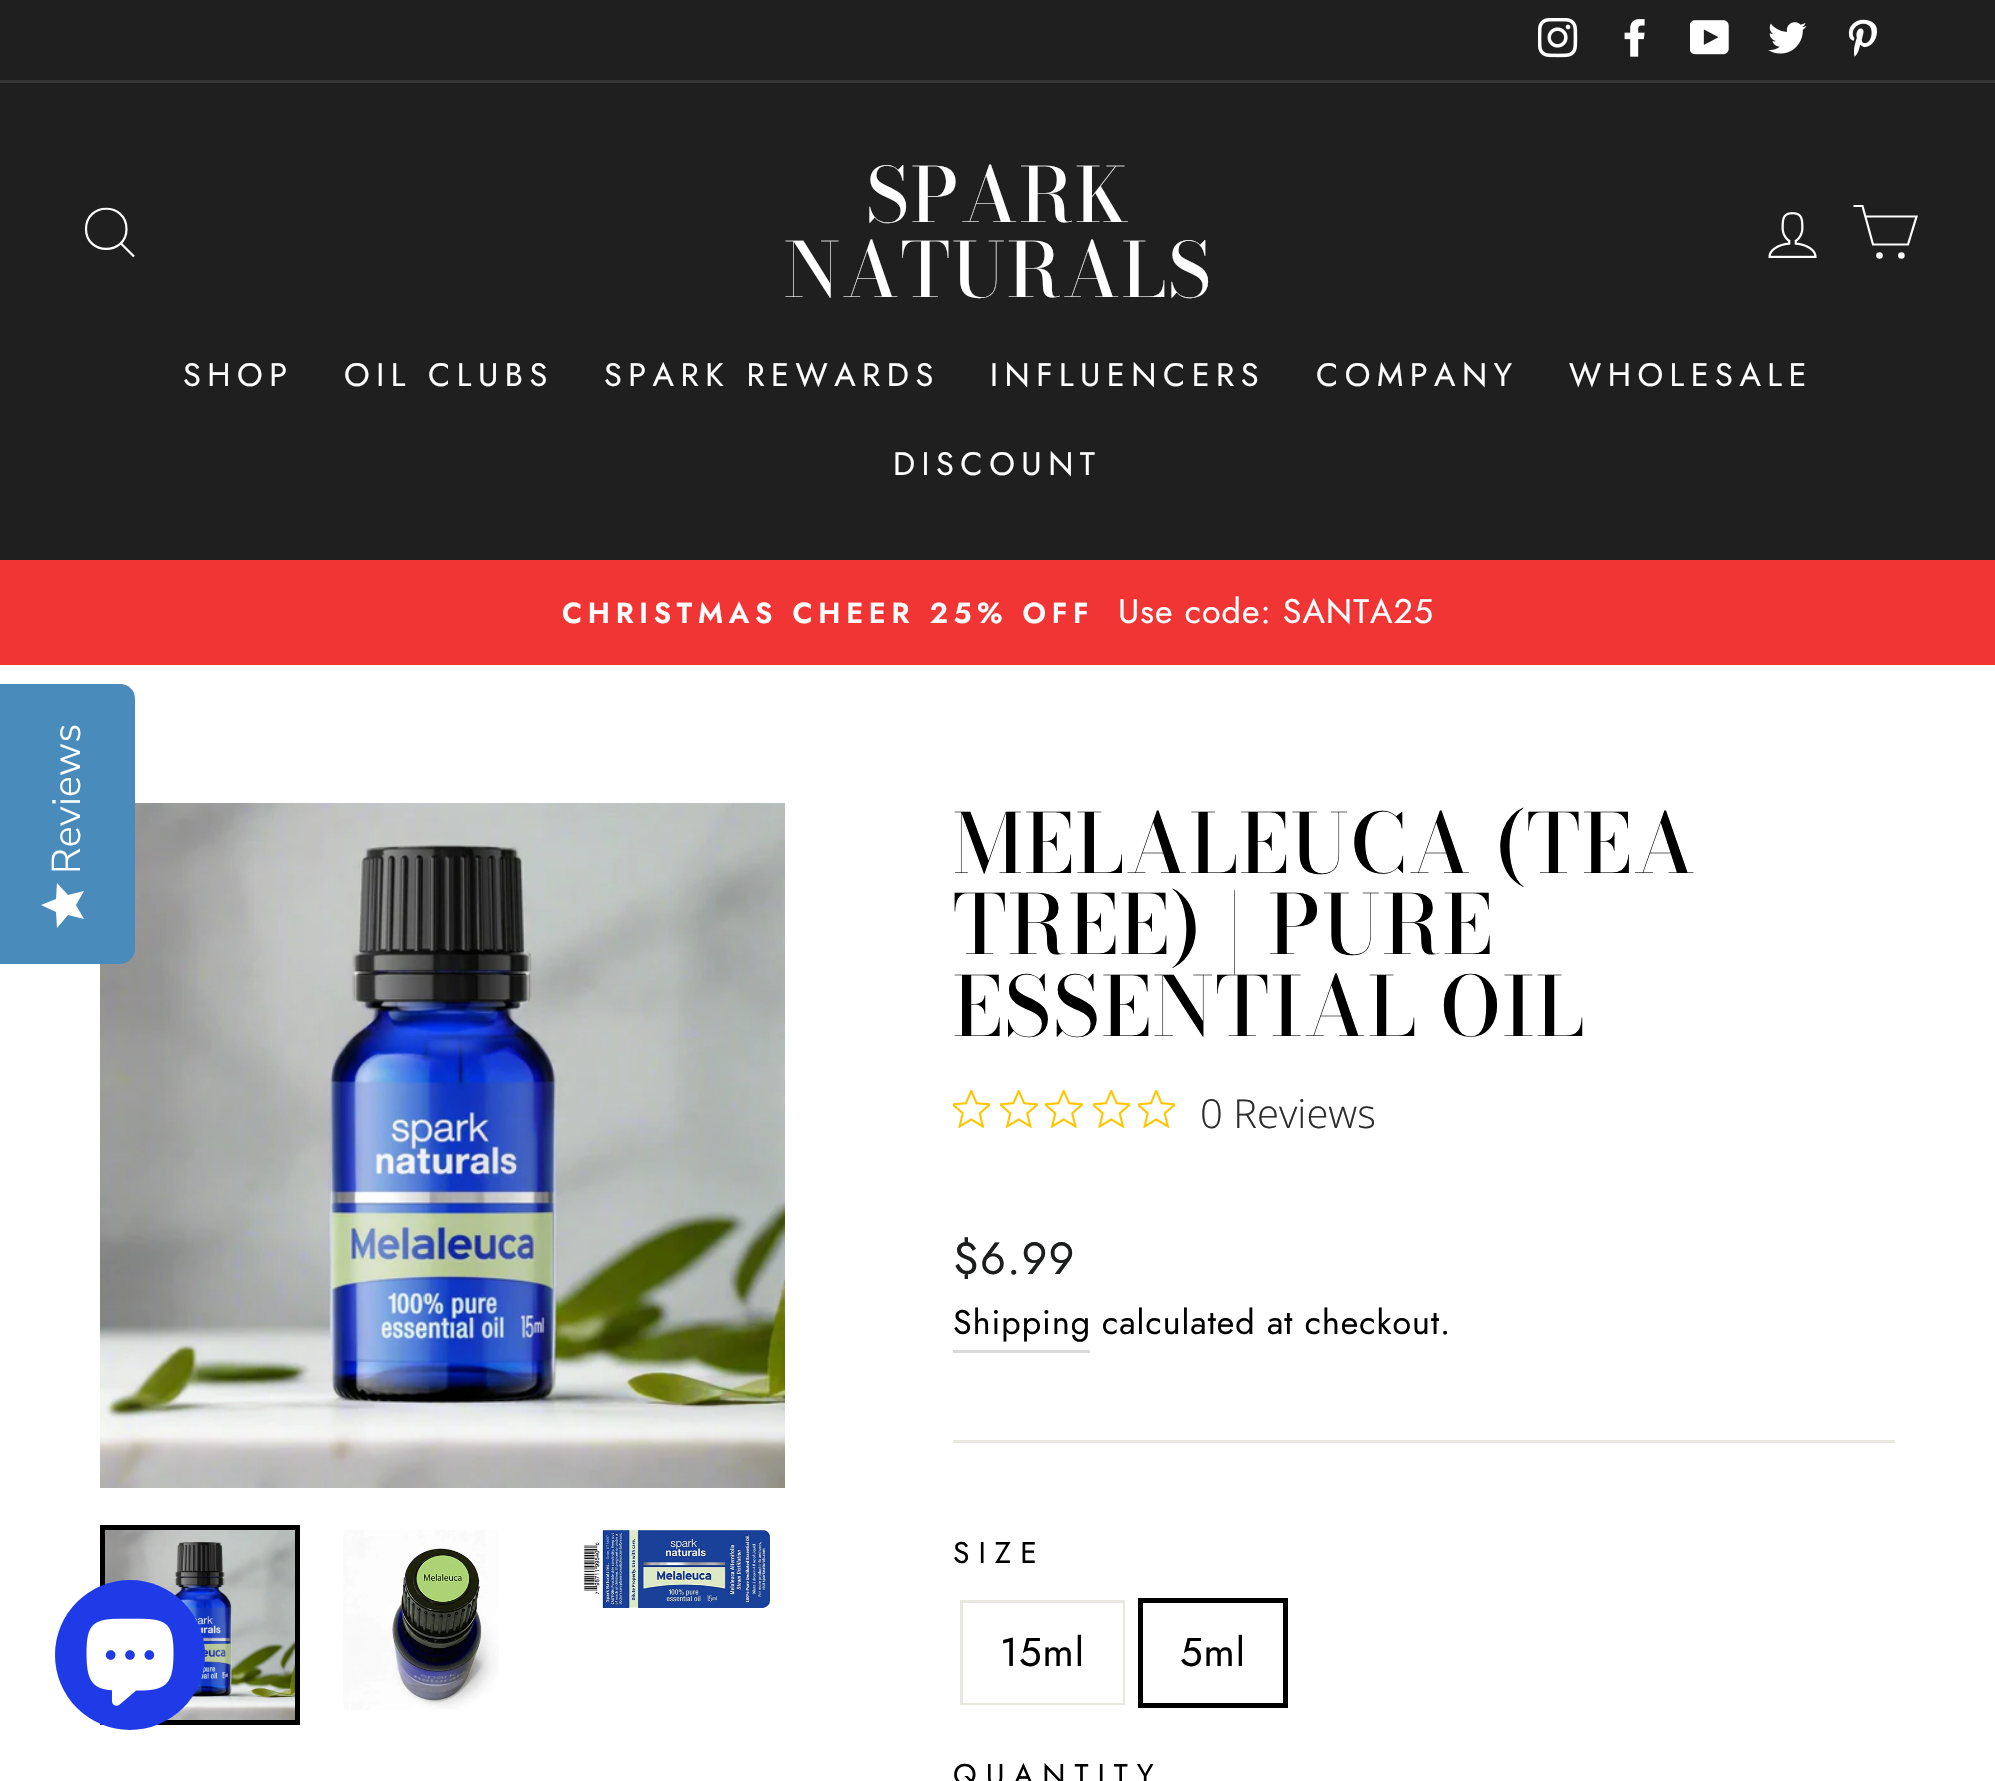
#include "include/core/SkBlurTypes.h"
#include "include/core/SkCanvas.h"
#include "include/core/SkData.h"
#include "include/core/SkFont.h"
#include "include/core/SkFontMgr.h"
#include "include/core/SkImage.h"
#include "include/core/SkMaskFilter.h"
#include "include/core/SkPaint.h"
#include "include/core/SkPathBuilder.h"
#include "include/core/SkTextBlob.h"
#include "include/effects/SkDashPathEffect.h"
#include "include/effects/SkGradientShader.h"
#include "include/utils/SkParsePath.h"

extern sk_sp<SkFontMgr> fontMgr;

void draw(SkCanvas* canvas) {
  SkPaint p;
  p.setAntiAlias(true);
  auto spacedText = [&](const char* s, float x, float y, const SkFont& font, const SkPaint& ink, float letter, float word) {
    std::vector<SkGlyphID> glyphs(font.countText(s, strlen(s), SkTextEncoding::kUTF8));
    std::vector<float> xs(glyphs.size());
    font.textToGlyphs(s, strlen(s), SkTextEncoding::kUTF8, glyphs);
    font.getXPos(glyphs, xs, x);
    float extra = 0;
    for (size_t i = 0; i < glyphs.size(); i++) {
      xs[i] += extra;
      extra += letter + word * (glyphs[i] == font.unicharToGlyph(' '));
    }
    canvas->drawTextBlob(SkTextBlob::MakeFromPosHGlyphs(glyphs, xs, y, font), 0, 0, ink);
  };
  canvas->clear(SK_ColorWHITE);
  canvas->drawImageRect(SkImages::DeferredFromEncodedData(SkData::MakeFromFileName("images/7.png")), SkRect::MakeLTRB(100, 803, 785, 1488), SkSamplingOptions());
  p.setColor(SkColorSetRGB(73, 140, 188));
  canvas->drawPath(SkPathBuilder().moveTo(0, 964).lineTo(0, 684).lineTo(120, 684).cubicTo(128, 684, 135, 690, 135, 699).lineTo(135, 949).cubicTo(135, 957, 128, 964, 120, 964).close().detach(), p);
  {
    const SkColor colors[] = {SkColorSetRGB(254, 254, 254), SkColorSetRGB(234, 234, 234)};
    const float stops[] = {1, 1};
    const SkPoint ends[] = {{41, 928}, {41, 883}};
    p.setShader(SkGradientShader::MakeLinear(ends, colors, stops, 2, SkTileMode::kClamp));
    p.setAlpha(255);
  }
  canvas->drawPath(SkPathBuilder().moveTo(76, 905).lineTo(84, 891).lineTo(68, 895).lineTo(57, 883).lineTo(56, 899).lineTo(41, 905).lineTo(56, 912).lineTo(57, 928).lineTo(68, 915).lineTo(84, 919).close().detach(), p);
  p.setShader(nullptr);
  p.setColor(SkColorSetRGB(31, 31, 31));
  canvas->drawRect(SkRect::MakeLTRB(0, 0, 1995, 80), p);
  canvas->drawImageRect(SkImages::DeferredFromEncodedData(SkData::MakeFromFileName("images/1.png")), SkRect::MakeLTRB(1538, 18, 1578, 58), SkSamplingOptions());
  canvas->drawImageRect(SkImages::DeferredFromEncodedData(SkData::MakeFromFileName("images/2.png")), SkRect::MakeLTRB(1624, 19, 1645, 57), SkSamplingOptions());
  canvas->drawImageRect(SkImages::DeferredFromEncodedData(SkData::MakeFromFileName("images/3.png")), SkRect::MakeLTRB(1690, 20, 1729, 55), SkSamplingOptions());
  canvas->drawImageRect(SkImages::DeferredFromEncodedData(SkData::MakeFromFileName("images/4.png")), SkRect::MakeLTRB(1768, 22, 1807, 54), SkSamplingOptions());
  canvas->drawImageRect(SkImages::DeferredFromEncodedData(SkData::MakeFromFileName("images/5.png")), SkRect::MakeLTRB(1848, 19, 1877, 57), SkSamplingOptions());
  canvas->drawRect(SkRect::MakeLTRB(0, 83, 1995, 560), p);
  p.setColor(SkColorSetRGB(53, 53, 53));
  canvas->drawRect(SkRect::MakeLTRB(0, 80, 1995, 83), p);
  p.setStyle(SkPaint::kStroke_Style);
  p.setStrokeWidth(2.2f);
  p.setColor(SK_ColorWHITE);
  canvas->drawPath(SkPathBuilder().moveTo(126.5f, 229).cubicTo(126.5f, 255.5f, 86, 255.5f, 86, 229).cubicTo(86, 202, 126.5f, 202, 126.5f, 229).close().moveTo(134, 256.5f).lineTo(121, 243.5f).detach(), p);
  canvas->drawImageRect(SkImages::DeferredFromEncodedData(SkData::MakeFromFileName("images/6.png")), SkRect::MakeLTRB(1768, 212, 1817, 258), SkSamplingOptions());
  canvas->drawPath(SkPathBuilder().moveTo(1865.5f, 216.5f).lineTo(1916.5f, 216.5f).lineTo(1908, 244.5f).lineTo(1873, 244.5f).lineTo(1862.5f, 206).lineTo(1853.5f, 206).detach(), p);
  p.setStyle(SkPaint::kFill_Style);
  canvas->drawCircle(1879.5f, 255.5f, 2.2f, p);
  p.setStyle(SkPaint::kStroke_Style);
  canvas->drawCircle(1879.5f, 255.5f, 2.2f, p);
  p.setStyle(SkPaint::kFill_Style);
  canvas->drawCircle(1901.4f, 255.5f, 2.2f, p);
  p.setStyle(SkPaint::kStroke_Style);
  canvas->drawCircle(1901.4f, 255.5f, 2.2f, p);
  p.setStyle(SkPaint::kFill_Style);
  p.setColor(SkColorSetRGB(241, 53, 53));
  canvas->drawRect(SkRect::MakeLTRB(0, 560, 1995, 665), p);
  p.setStyle(SkPaint::kStroke_Style);
  p.setStrokeWidth(5);
  p.setColor(SK_ColorBLACK);
  canvas->drawRect(SkRect::MakeLTRB(102.5f, 1527.5f, 297.5f, 1722.5f), p);
  canvas->drawImageRect(SkImages::DeferredFromEncodedData(SkData::MakeFromFileName("images/8.png")), SkRect::MakeLTRB(105, 1530, 295, 1720), SkSamplingOptions());
  canvas->drawImageRect(SkImages::DeferredFromEncodedData(SkData::MakeFromFileName("images/9.png")), SkRect::MakeLTRB(343, 1530, 499, 1710), SkSamplingOptions());
  canvas->drawImageRect(SkImages::DeferredFromEncodedData(SkData::MakeFromFileName("images/10.png")), SkRect::MakeLTRB(583, 1530, 770, 1608), SkSamplingOptions());
  canvas->drawImageRect(SkImages::DeferredFromEncodedData(SkData::MakeFromFileName("images/11.png")), SkRect::MakeLTRB(953, 1090, 990, 1128), SkSamplingOptions());
  canvas->drawImageRect(SkImages::DeferredFromEncodedData(SkData::MakeFromFileName("images/12.png")), SkRect::MakeLTRB(1000, 1090, 1038, 1128), SkSamplingOptions());
  canvas->drawImageRect(SkImages::DeferredFromEncodedData(SkData::MakeFromFileName("images/12.png")), SkRect::MakeLTRB(1045, 1090, 1083, 1128), SkSamplingOptions());
  canvas->drawImageRect(SkImages::DeferredFromEncodedData(SkData::MakeFromFileName("images/11.png")), SkRect::MakeLTRB(1093, 1090, 1130, 1128), SkSamplingOptions());
  canvas->drawImageRect(SkImages::DeferredFromEncodedData(SkData::MakeFromFileName("images/11.png")), SkRect::MakeLTRB(1138, 1090, 1175, 1128), SkSamplingOptions());
  p.setStyle(SkPaint::kFill_Style);
  p.setColor(SkColorSetRGB(217, 217, 217));
  canvas->drawRect(SkRect::MakeLTRB(953, 1350, 1090, 1353), p);
  p.setColor(SkColorSetRGB(232, 232, 225));
  canvas->drawRect(SkRect::MakeLTRB(953, 1440, 1895, 1443), p);
  p.setStyle(SkPaint::kStroke_Style);
  p.setStrokeWidth(3);
  canvas->drawRect(SkRect::MakeLTRB(961.5f, 1601.5f, 1123.5f, 1703.5f), p);
  p.setStyle(SkPaint::kFill_Style);
  p.setColor(SK_ColorWHITE);
  canvas->drawRect(SkRect::MakeLTRB(963, 1603, 1123, 1703), p);
  p.setStyle(SkPaint::kStroke_Style);
  p.setStrokeWidth(5);
  p.setColor(SK_ColorBLACK);
  canvas->drawRect(SkRect::MakeLTRB(1140.5f, 1600.5f, 1285.5f, 1705.5f), p);
  p.setStyle(SkPaint::kFill_Style);
  p.setColor(SkColorSetRGB(31, 59, 232));
  canvas->drawCircle(130, 1655, 75, p);
  canvas->drawImageRect(SkImages::DeferredFromEncodedData(SkData::MakeFromFileName("images/13.png")), SkRect::MakeLTRB(86, 1618, 174, 1706), SkSamplingOptions());
  SkFont font1(fontMgr->matchFamilyStyle("Nunito Sans", SkFontStyle(300, SkFontStyle::kNormal_Width, SkFontStyle::kUpright_Slant)), 40);
  font1.setSubpixel(true);
  p.setColor(SK_ColorWHITE);
  canvas->save();
  canvas->rotate(-90, 80, 874);
  canvas->drawString("Reviews", 80, 874, font1, p);
  canvas->restore();
  SkFont font2(fontMgr->matchFamilyStyle("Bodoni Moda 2", SkFontStyle(500, SkFontStyle::kNormal_Width, SkFontStyle::kUpright_Slant)), 75);
  font2.setSubpixel(true);
  spacedText("SPARK", 866, 222, font2, p, 2, 0);
  spacedText("NATURALS", 784, 297, font2, p, 2, 0);
  SkFont font3(fontMgr->matchFamilyStyle("Jost", SkFontStyle::Normal()), 32.5f);
  font3.setSubpixel(true);
  spacedText("SHOP", 183, 386, font3, p, 6.5f, 0);
  spacedText("OIL CLUBS", 344, 386, font3, p, 6.5f, 0);
  spacedText("SPARK REWARDS", 604, 386, font3, p, 6.5f, 0);
  spacedText("INFLUENCERS", 990, 386, font3, p, 6.5f, 0);
  spacedText("COMPANY", 1316, 386, font3, p, 6.5f, 0);
  spacedText("WHOLESALE", 1569, 386, font3, p, 6.5f, 0);
  spacedText("DISCOUNT", 893, 475, font3, p, 6.5f, 0);
  SkFont font4(fontMgr->matchFamilyStyle("Jost", SkFontStyle(600, SkFontStyle::kNormal_Width, SkFontStyle::kUpright_Slant)), 28.9f);
  font4.setSubpixel(true);
  spacedText("CHRISTMAS CHEER 25% OFF", 562, 623, font4, p, 5.75f, 0);
  SkFont font5(fontMgr->matchFamilyStyle("Jost", SkFontStyle::Normal()), 34);
  font5.setSubpixel(true);
  spacedText("Use code: SANTA25", 1118, 623, font5, p, 1, 0);
  SkFont font6(fontMgr->matchFamilyStyle("Bodoni Moda", SkFontStyle(500, SkFontStyle::kNormal_Width, SkFontStyle::kUpright_Slant)), 81.75f);
  font6.setSubpixel(true);
  p.setColor(SK_ColorBLACK);
  spacedText("MELALEUCA (TEA", 953, 873, font6, p, 2, 0);
  spacedText("TREE) | PURE", 953, 954, font6, p, 2, 0);
  spacedText("ESSENTIAL OIL", 953, 1036, font6, p, 2, 0);
  SkFont font7(fontMgr->matchFamilyStyle("Open Sans", SkFontStyle(300, SkFontStyle::kNormal_Width, SkFontStyle::kUpright_Slant)), 40);
  font7.setSubpixel(true);
  p.setColor(SkColorSetRGB(44, 44, 44));
  canvas->drawString("0 Reviews", 1200, 1128, font7, p);
  SkFont font8(fontMgr->matchFamilyStyle("Jost", SkFontStyle::Normal()), 45);
  font8.setSubpixel(true);
  p.setColor(SkColorSetRGB(28, 29, 29));
  spacedText("$6.99", 953, 1274, font8, p, 1, 0);
  p.setColor(SK_ColorBLACK);
  spacedText("Shipping", 953, 1334, font5, p, 1, 0);
  spacedText("calculated at checkout.", 1102, 1334, font5, p, 1, 0);
  SkFont font9(fontMgr->matchFamilyStyle("Jost", SkFontStyle::Normal()), 30);
  font9.setSubpixel(true);
  spacedText("SIZE", 953, 1563, font9, p, 9, 0);
  SkFont font10(fontMgr->matchFamilyStyle("Jost", SkFontStyle::Normal()), 40);
  font10.setSubpixel(true);
  spacedText("15ml", 1000, 1666, font10, p, 1, 0);
  spacedText("5ml", 1180, 1666, font10, p, 1, 0);
  spacedText("QUANTITY", 953, 1785, font9, p, 9, 0);
}
